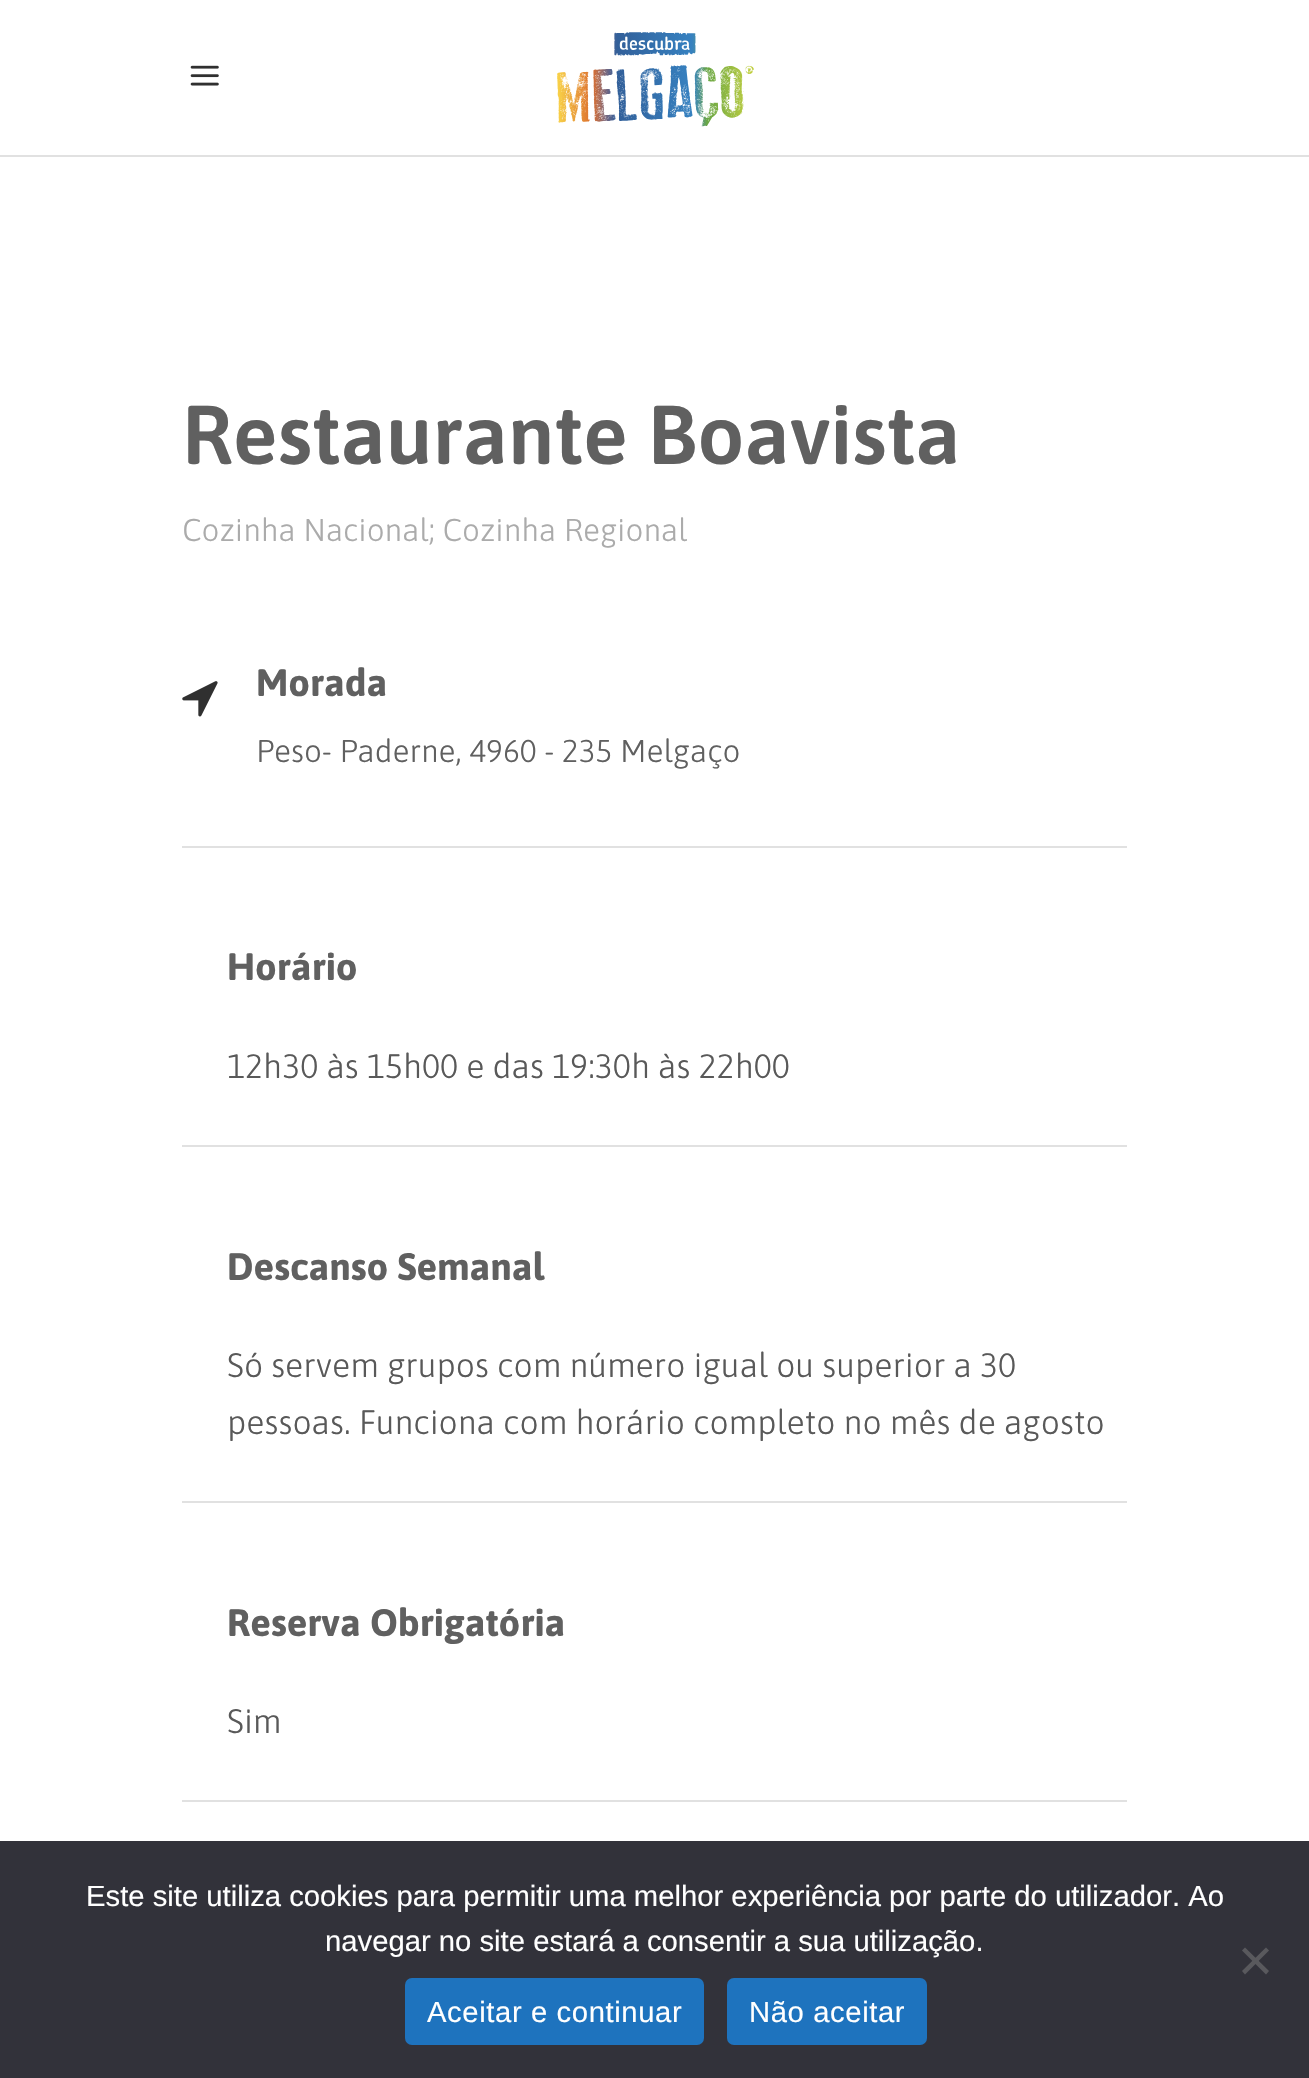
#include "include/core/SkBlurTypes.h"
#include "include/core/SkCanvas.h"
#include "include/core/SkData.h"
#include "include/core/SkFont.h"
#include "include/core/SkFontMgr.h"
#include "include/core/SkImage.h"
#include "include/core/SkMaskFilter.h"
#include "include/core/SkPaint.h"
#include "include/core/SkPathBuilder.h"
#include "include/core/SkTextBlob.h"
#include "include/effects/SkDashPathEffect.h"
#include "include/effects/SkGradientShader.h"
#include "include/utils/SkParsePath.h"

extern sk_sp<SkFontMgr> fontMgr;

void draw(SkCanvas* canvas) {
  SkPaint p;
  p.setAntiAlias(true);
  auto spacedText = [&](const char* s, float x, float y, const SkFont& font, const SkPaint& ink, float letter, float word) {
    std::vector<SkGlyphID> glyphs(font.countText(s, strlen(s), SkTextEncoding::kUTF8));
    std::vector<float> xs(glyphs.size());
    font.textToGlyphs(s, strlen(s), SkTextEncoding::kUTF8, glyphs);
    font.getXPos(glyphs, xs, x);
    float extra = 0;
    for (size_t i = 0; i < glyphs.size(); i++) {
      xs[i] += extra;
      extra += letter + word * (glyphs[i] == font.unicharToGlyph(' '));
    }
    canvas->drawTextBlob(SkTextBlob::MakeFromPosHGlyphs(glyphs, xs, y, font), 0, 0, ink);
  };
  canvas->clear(SK_ColorWHITE);
  p.setColor(SkColorSetRGB(225, 225, 225));
  canvas->drawRect(SkRect::MakeLTRB(0, 155, 1309, 157), p);
  canvas->drawImageRect(SkImages::DeferredFromEncodedData(SkData::MakeFromFileName("images/1.png")), SkRect::MakeLTRB(190, 65, 219, 86), SkSamplingOptions());
  canvas->drawImageRect(SkImages::DeferredFromEncodedData(SkData::MakeFromFileName("images/2.png")), SkRect::MakeLTRB(557, 32, 754, 127), SkSamplingOptions());
  canvas->drawImageRect(SkImages::DeferredFromEncodedData(SkData::MakeFromFileName("images/3.png")), SkRect::MakeLTRB(182, 681, 218, 717), SkSamplingOptions());
  canvas->drawRect(SkRect::MakeLTRB(182, 846, 1127, 848), p);
  canvas->drawRect(SkRect::MakeLTRB(182, 1145, 1127, 1147), p);
  canvas->drawRect(SkRect::MakeLTRB(182, 1501, 1127, 1503), p);
  canvas->drawRect(SkRect::MakeLTRB(182, 1800, 1127, 1802), p);
  p.setColor(SkColorSetRGB(50, 50, 58));
  canvas->drawRect(SkRect::MakeLTRB(0, 1841, 1309, 2078), p);
  p.setColor(SkColorSetRGB(89, 89, 93));
  canvas->drawPath(SkPathBuilder().moveTo(1266, 1947.5f).lineTo(1269, 1950.5f).lineTo(1245, 1974.5f).lineTo(1242, 1971).close().detach(), p);
  canvas->drawPath(SkPathBuilder().moveTo(1242, 1950.5f).lineTo(1245, 1947.5f).lineTo(1269, 1971).lineTo(1266, 1974.5f).close().detach(), p);
  p.setColor(SkColorSetRGB(30, 115, 190));
  canvas->drawRoundRect(SkRect::MakeLTRB(405, 1978, 704, 2045), 7, 7, p);
  canvas->drawRoundRect(SkRect::MakeLTRB(727, 1978, 927, 2045), 7, 7, p);
  SkFont font1(fontMgr->matchFamilyStyle("Asap", SkFontStyle(600, SkFontStyle::kNormal_Width, SkFontStyle::kUpright_Slant)), 83.25f);
  font1.setSubpixel(true);
  p.setColor(SkColorSetRGB(96, 96, 96));
  canvas->drawString("Restaurante Boavista", 182, 464, font1, p);
  SkFont font2(fontMgr->matchFamilyStyle("Asap", SkFontStyle(300, SkFontStyle::kNormal_Width, SkFontStyle::kUpright_Slant)), 31.5f);
  font2.setSubpixel(true);
  p.setColor(SkColorSetRGB(171, 171, 171));
  canvas->drawString("Cozinha Nacional; Cozinha Regional", 182, 541, font2, p);
  SkFont font3(fontMgr->matchFamilyStyle("Asap", SkFontStyle::Bold()), 38.25f);
  font3.setSubpixel(true);
  p.setColor(SkColorSetRGB(96, 96, 96));
  canvas->drawString("Morada", 256, 696, font3, p);
  canvas->drawString("Peso- Paderne, 4960 - 235 Melgaço", 256, 762, font2, p);
  canvas->drawString("Horário", 227, 980, font3, p);
  SkFont font4(fontMgr->matchFamilyStyle("Asap", SkFontStyle(300, SkFontStyle::kNormal_Width, SkFontStyle::kUpright_Slant)), 33.75f);
  font4.setSubpixel(true);
  p.setColor(SkColorSetRGB(89, 89, 89));
  canvas->drawString("12h30 às 15h00 e das 19:30h às 22h00", 227, 1078, font4, p);
  p.setColor(SkColorSetRGB(96, 96, 96));
  canvas->drawString("Descanso Semanal", 227, 1280, font3, p);
  p.setColor(SkColorSetRGB(89, 89, 89));
  canvas->drawString("Só servem grupos com número igual ou superior a 30", 227, 1377, font4, p);
  canvas->drawString("pessoas. Funciona com horário completo no mês de agosto", 227, 1434, font4, p);
  p.setColor(SkColorSetRGB(96, 96, 96));
  canvas->drawString("Reserva Obrigatória", 227, 1636, font3, p);
  p.setColor(SkColorSetRGB(89, 89, 89));
  canvas->drawString("Sim", 227, 1733, font4, p);
  SkFont font5(fontMgr->matchFamilyStyle("Liberation Sans", SkFontStyle::Normal()), 29.25f);
  font5.setSubpixel(true);
  p.setColor(SK_ColorWHITE);
  canvas->drawString("Este site utiliza cookies para permitir uma melhor experiência por parte do utilizador. Ao", 86, 1906, font5, p);
  canvas->drawString("navegar no site estará a consentir a sua utilização.", 325, 1951, font5, p);
  spacedText("Aceitar e continuar", 427, 2022, font5, p, 0.6f, 0);
  spacedText("Não aceitar", 749, 2022, font5, p, 0.6f, 0);
}
